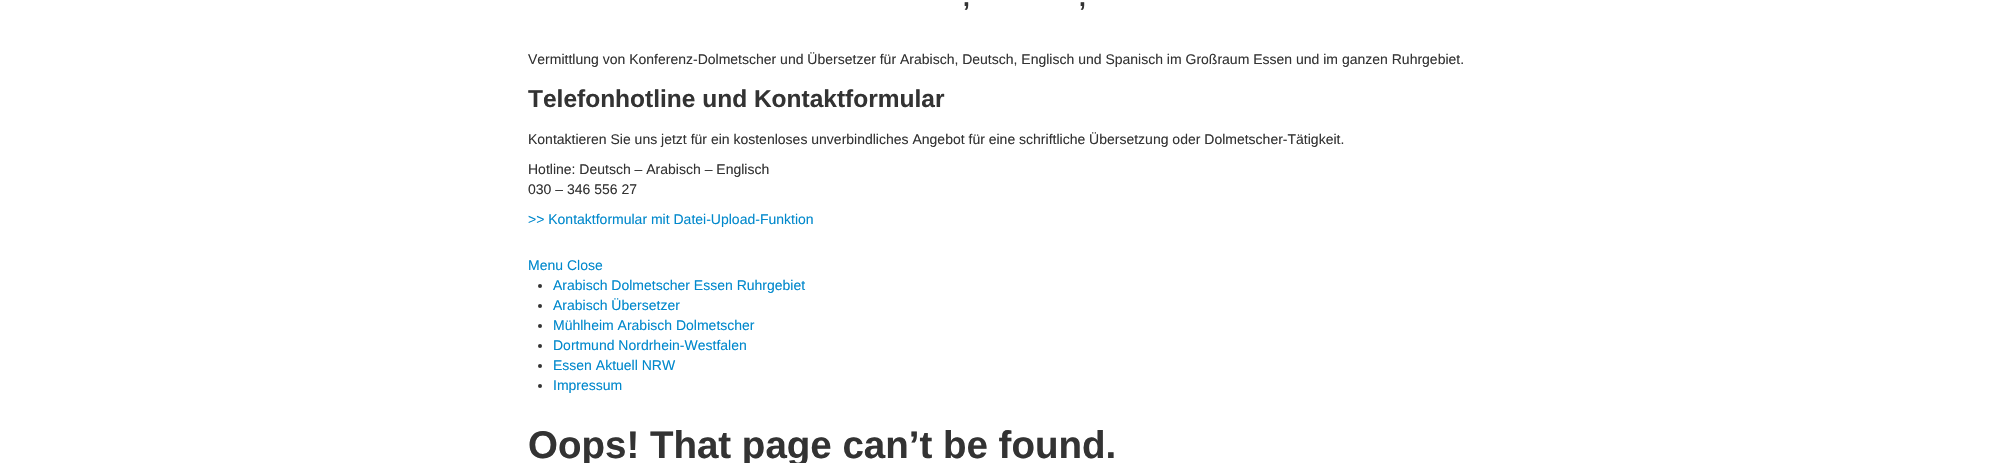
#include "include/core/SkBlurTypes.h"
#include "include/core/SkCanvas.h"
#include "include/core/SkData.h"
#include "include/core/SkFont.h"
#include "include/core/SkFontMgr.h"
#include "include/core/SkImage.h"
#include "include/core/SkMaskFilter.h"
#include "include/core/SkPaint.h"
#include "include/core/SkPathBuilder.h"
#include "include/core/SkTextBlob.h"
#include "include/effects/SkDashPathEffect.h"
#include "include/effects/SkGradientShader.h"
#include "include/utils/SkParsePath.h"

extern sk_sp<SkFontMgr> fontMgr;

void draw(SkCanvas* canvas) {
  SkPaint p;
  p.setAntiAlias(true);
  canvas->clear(SK_ColorWHITE);
  p.setColor(SkColorSetRGB(51, 51, 51));
  canvas->drawCircle(540, 286, 2, p);
  canvas->drawCircle(540, 306, 2, p);
  canvas->drawCircle(540, 326, 2, p);
  canvas->drawCircle(540, 346, 2, p);
  canvas->drawCircle(540, 366, 2, p);
  canvas->drawCircle(540, 386, 2, p);
  SkFont font1(fontMgr->matchFamilyStyle("Liberation Sans", SkFontStyle::Bold()), 24.5f);
  font1.setSubpixel(true);
  canvas->drawString(",", 963, 6, font1, p);
  canvas->drawString(",", 1079, 6, font1, p);
  SkFont font2(fontMgr->matchFamilyStyle("Liberation Sans", SkFontStyle::Normal()), 14);
  font2.setSubpixel(true);
  canvas->drawString("Vermittlung von Konferenz-Dolmetscher und Übersetzer für Arabisch, Deutsch, Englisch und Spanisch im Großraum Essen und im ganzen Ruhrgebiet.", 528, 64, font2, p);
  canvas->drawString("Telefonhotline und Kontaktformular", 528, 107, font1, p);
  canvas->drawString("Kontaktieren Sie uns jetzt für ein kostenloses unverbindliches Angebot für eine schriftliche Übersetzung oder Dolmetscher-Tätigkeit.", 528, 144, font2, p);
  canvas->drawString("Hotline: Deutsch – Arabisch – Englisch", 528, 174, font2, p);
  canvas->drawString("030 – 346 556 27", 528, 194, font2, p);
  p.setColor(SkColorSetRGB(0, 136, 204));
  canvas->drawString(">> Kontaktformular mit Datei-Upload-Funktion", 528, 224, font2, p);
  canvas->drawString("Menu Close", 528, 270, font2, p);
  canvas->drawString("Arabisch Dolmetscher Essen Ruhrgebiet", 553, 290, font2, p);
  canvas->drawString("Arabisch Übersetzer", 553, 310, font2, p);
  canvas->drawString("Mühlheim Arabisch Dolmetscher", 553, 330, font2, p);
  canvas->drawString("Dortmund Nordrhein-Westfalen", 553, 350, font2, p);
  canvas->drawString("Essen Aktuell NRW", 553, 370, font2, p);
  canvas->drawString("Impressum", 553, 390, font2, p);
  SkFont font3(fontMgr->matchFamilyStyle("Liberation Sans", SkFontStyle::Bold()), 38.5f);
  font3.setSubpixel(true);
  p.setColor(SkColorSetRGB(51, 51, 51));
  canvas->drawString("Oops! That page can’t be found.", 528, 458, font3, p);
}
